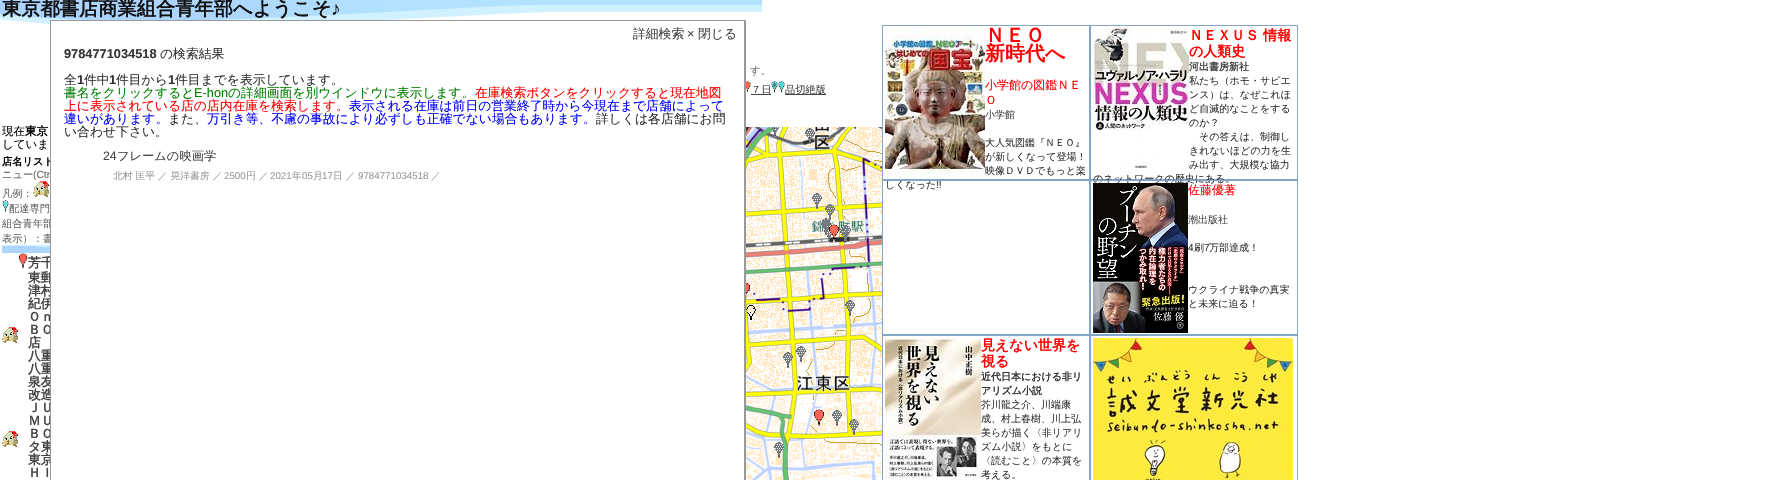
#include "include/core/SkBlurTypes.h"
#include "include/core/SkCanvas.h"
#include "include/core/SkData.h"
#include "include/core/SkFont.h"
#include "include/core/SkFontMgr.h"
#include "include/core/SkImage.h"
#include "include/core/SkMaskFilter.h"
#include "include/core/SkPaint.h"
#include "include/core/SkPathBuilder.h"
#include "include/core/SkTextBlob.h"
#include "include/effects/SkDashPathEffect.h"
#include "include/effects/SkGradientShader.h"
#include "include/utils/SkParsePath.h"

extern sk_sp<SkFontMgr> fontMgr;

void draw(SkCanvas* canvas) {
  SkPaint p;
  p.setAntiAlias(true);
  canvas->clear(SK_ColorWHITE);
  canvas->drawImageRect(SkImages::DeferredFromEncodedData(SkData::MakeFromFileName("images/1.png")), SkRect::MakeLTRB(0, 0, 762, 28), SkSamplingOptions());
  p.setColor(SkColorSetRGB(153, 153, 153));
  canvas->drawRect(SkRect::MakeLTRB(50, 20, 746, 21), p);
  canvas->drawRect(SkRect::MakeLTRB(744, 20, 746, 480), p);
  canvas->drawImageRect(SkImages::DeferredFromEncodedData(SkData::MakeFromFileName("images/2.png")), SkRect::MakeLTRB(746, 81, 751, 93), SkSamplingOptions());
  p.setColor(SkColorSetRGB(68, 68, 68));
  canvas->drawRect(SkRect::MakeLTRB(751, 94, 771, 95), p);
  canvas->drawImageRect(SkImages::DeferredFromEncodedData(SkData::MakeFromFileName("images/3.png")), SkRect::MakeLTRB(771, 81, 778, 93), SkSamplingOptions());
  canvas->drawImageRect(SkImages::DeferredFromEncodedData(SkData::MakeFromFileName("images/4.png")), SkRect::MakeLTRB(778, 81, 785, 93), SkSamplingOptions());
  canvas->drawRect(SkRect::MakeLTRB(785, 94, 826, 95), p);
  p.setStyle(SkPaint::kStroke_Style);
  p.setStrokeWidth(1);
  p.setColor(SkColorSetRGB(128, 166, 202));
  canvas->drawRect(SkRect::MakeLTRB(882.5f, 25.5f, 1089.5f, 179.5f), p);
  canvas->drawImageRect(SkImages::DeferredFromEncodedData(SkData::MakeFromFileName("images/5.png")), SkRect::MakeLTRB(885, 28, 985, 175), SkSamplingOptions());
  canvas->drawRect(SkRect::MakeLTRB(1090.5f, 25.5f, 1297.5f, 179.5f), p);
  canvas->drawImageRect(SkImages::DeferredFromEncodedData(SkData::MakeFromFileName("images/6.png")), SkRect::MakeLTRB(1093, 28, 1189, 169), SkSamplingOptions());
  canvas->drawRect(SkRect::MakeLTRB(882.5f, 335.5f, 1089.5f, 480.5f), p);
  canvas->drawImageRect(SkImages::DeferredFromEncodedData(SkData::MakeFromFileName("images/8.png")), SkRect::MakeLTRB(885, 338, 981, 479), SkSamplingOptions());
  canvas->drawRect(SkRect::MakeLTRB(1090.5f, 335.5f, 1297.5f, 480.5f), p);
  canvas->drawImageRect(SkImages::DeferredFromEncodedData(SkData::MakeFromFileName("images/9.png")), SkRect::MakeLTRB(1093, 338, 1293, 480), SkSamplingOptions());
  canvas->drawImageRect(SkImages::DeferredFromEncodedData(SkData::MakeFromFileName("images/10.png")), SkRect::MakeLTRB(2, 245, 50, 253), SkSamplingOptions());
  canvas->drawImageRect(SkImages::DeferredFromEncodedData(SkData::MakeFromFileName("images/11.png")), SkRect::MakeLTRB(33, 181, 49, 197), SkSamplingOptions());
  canvas->drawImageRect(SkImages::DeferredFromEncodedData(SkData::MakeFromFileName("images/12.png")), SkRect::MakeLTRB(2, 200, 9, 212), SkSamplingOptions());
  canvas->drawImageRect(SkImages::DeferredFromEncodedData(SkData::MakeFromFileName("images/13.png")), SkRect::MakeLTRB(18, 253, 28, 269), SkSamplingOptions());
  canvas->drawImageRect(SkImages::DeferredFromEncodedData(SkData::MakeFromFileName("images/11.png")), SkRect::MakeLTRB(2, 327, 18, 343), SkSamplingOptions());
  canvas->drawImageRect(SkImages::DeferredFromEncodedData(SkData::MakeFromFileName("images/11.png")), SkRect::MakeLTRB(2, 431, 18, 447), SkSamplingOptions());
  canvas->drawImageRect(SkImages::DeferredFromEncodedData(SkData::MakeFromFileName("images/14.png")), SkRect::MakeLTRB(746, 127, 882, 138), SkSamplingOptions());
  canvas->drawImageRect(SkImages::DeferredFromEncodedData(SkData::MakeFromFileName("images/15.png")), SkRect::MakeLTRB(746, 138, 882, 394), SkSamplingOptions());
  canvas->drawImageRect(SkImages::DeferredFromEncodedData(SkData::MakeFromFileName("images/16.png")), SkRect::MakeLTRB(746, 394, 882, 480), SkSamplingOptions());
  canvas->drawImageRect(SkImages::DeferredFromEncodedData(SkData::MakeFromFileName("images/17.png")), SkRect::MakeLTRB(770, 127, 780, 137), SkSamplingOptions());
  canvas->drawImageRect(SkImages::DeferredFromEncodedData(SkData::MakeFromFileName("images/18.png")), SkRect::MakeLTRB(805, 128, 815, 144), SkSamplingOptions());
  canvas->drawImageRect(SkImages::DeferredFromEncodedData(SkData::MakeFromFileName("images/19.png")), SkRect::MakeLTRB(854, 127, 856, 129), SkSamplingOptions());
  canvas->drawImageRect(SkImages::DeferredFromEncodedData(SkData::MakeFromFileName("images/20.png")), SkRect::MakeLTRB(812, 193, 822, 209), SkSamplingOptions());
  canvas->drawImageRect(SkImages::DeferredFromEncodedData(SkData::MakeFromFileName("images/21.png")), SkRect::MakeLTRB(825, 204, 835, 220), SkSamplingOptions());
  canvas->drawImageRect(SkImages::DeferredFromEncodedData(SkData::MakeFromFileName("images/22.png")), SkRect::MakeLTRB(821, 218, 831, 228), SkSamplingOptions());
  canvas->drawImageRect(SkImages::DeferredFromEncodedData(SkData::MakeFromFileName("images/23.png")), SkRect::MakeLTRB(821, 219, 831, 235), SkSamplingOptions());
  canvas->drawImageRect(SkImages::DeferredFromEncodedData(SkData::MakeFromFileName("images/26.png")), SkRect::MakeLTRB(824, 226, 831, 242), SkSamplingOptions());
  canvas->drawImageRect(SkImages::DeferredFromEncodedData(SkData::MakeFromFileName("images/24.png")), SkRect::MakeLTRB(829, 224, 839, 242), SkSamplingOptions());
  canvas->drawImageRect(SkImages::DeferredFromEncodedData(SkData::MakeFromFileName("images/25.png")), SkRect::MakeLTRB(841, 225, 851, 241), SkSamplingOptions());
  canvas->drawImageRect(SkImages::DeferredFromEncodedData(SkData::MakeFromFileName("images/27.png")), SkRect::MakeLTRB(840, 227, 850, 243), SkSamplingOptions());
  canvas->drawImageRect(SkImages::DeferredFromEncodedData(SkData::MakeFromFileName("images/28.png")), SkRect::MakeLTRB(746, 282, 750, 294), SkSamplingOptions());
  canvas->drawImageRect(SkImages::DeferredFromEncodedData(SkData::MakeFromFileName("images/29.png")), SkRect::MakeLTRB(746, 305, 756, 320), SkSamplingOptions());
  canvas->drawImageRect(SkImages::DeferredFromEncodedData(SkData::MakeFromFileName("images/30.png")), SkRect::MakeLTRB(845, 300, 855, 316), SkSamplingOptions());
  canvas->drawImageRect(SkImages::DeferredFromEncodedData(SkData::MakeFromFileName("images/31.png")), SkRect::MakeLTRB(783, 352, 793, 368), SkSamplingOptions());
  canvas->drawImageRect(SkImages::DeferredFromEncodedData(SkData::MakeFromFileName("images/32.png")), SkRect::MakeLTRB(796, 346, 806, 362), SkSamplingOptions());
  canvas->drawImageRect(SkImages::DeferredFromEncodedData(SkData::MakeFromFileName("images/33.png")), SkRect::MakeLTRB(814, 409, 824, 427), SkSamplingOptions());
  canvas->drawImageRect(SkImages::DeferredFromEncodedData(SkData::MakeFromFileName("images/34.png")), SkRect::MakeLTRB(832, 410, 842, 426), SkSamplingOptions());
  canvas->drawImageRect(SkImages::DeferredFromEncodedData(SkData::MakeFromFileName("images/35.png")), SkRect::MakeLTRB(849, 419, 859, 435), SkSamplingOptions());
  canvas->drawImageRect(SkImages::DeferredFromEncodedData(SkData::MakeFromFileName("images/36.png")), SkRect::MakeLTRB(774, 442, 784, 458), SkSamplingOptions());
  SkFont font1(fontMgr->matchFamilyStyle("WenQuanYi Zen Hei", SkFontStyle::Bold()), 19.25f);
  font1.setSubpixel(true);
  p.setStyle(SkPaint::kFill_Style);
  p.setColor(SkColorSetRGB(17, 17, 17));
  canvas->drawString("東京都書店商業組合青年部へようこそ", 2, 15, font1, p);
  SkFont font2(fontMgr->matchFamilyStyle("Liberation Sans", SkFontStyle::Bold()), 19.25f);
  font2.setSubpixel(true);
  canvas->drawString("♪", 331, 15, font2, p);
  SkFont font3(fontMgr->matchFamilyStyle("WenQuanYi Zen Hei", SkFontStyle(500, SkFontStyle::kNormal_Width, SkFontStyle::kUpright_Slant)), 12.8f);
  font3.setSubpixel(true);
  p.setColor(SkColorSetRGB(68, 68, 68));
  canvas->drawString("詳細検索", 633, 38, font3, p);
  SkFont font4(fontMgr->matchFamilyStyle("Liberation Sans", SkFontStyle::Normal()), 12.8f);
  font4.setSubpixel(true);
  canvas->drawString("×", 687, 38, font4, p);
  canvas->drawString("閉じる", 698, 38, font3, p);
  p.setColor(SkColorSetRGB(255, 0, 0));
  canvas->drawString("在庫検索ボタンをクリックすると現在地図", 475, 97, font3, p);
  p.setColor(SkColorSetRGB(51, 51, 51));
  canvas->drawString("詳しくは各店舗にお問", 596, 123, font3, p);
  SkFont font5(fontMgr->matchFamilyStyle("WenQuanYi Zen Hei", SkFontStyle(500, SkFontStyle::kNormal_Width, SkFontStyle::kUpright_Slant)), 9.75f);
  font5.setSubpixel(true);
  p.setColor(SkColorSetRGB(153, 153, 153));
  canvas->drawString("／", 431, 179, font5, p);
  SkFont font6(fontMgr->matchFamilyStyle("WenQuanYi Zen Hei", SkFontStyle(500, SkFontStyle::kNormal_Width, SkFontStyle::kUpright_Slant)), 10.25f);
  font6.setSubpixel(true);
  p.setColor(SkColorSetRGB(102, 102, 102));
  canvas->drawString("す。", 750, 74, font6, p);
  p.setColor(SkColorSetRGB(68, 68, 68));
  canvas->drawString("７日", 751, 93, font6, p);
  canvas->drawString("品切絶版", 785, 93, font6, p);
  SkFont font7(fontMgr->matchFamilyStyle("WenQuanYi Zen Hei", SkFontStyle::Bold()), 20);
  font7.setSubpixel(true);
  p.setColor(SkColorSetRGB(255, 0, 0));
  canvas->drawString("ＮＥＯ", 985, 42, font7, p);
  canvas->drawString("新時代へ", 985, 60, font7, p);
  SkFont font8(fontMgr->matchFamilyStyle("WenQuanYi Zen Hei", SkFontStyle(500, SkFontStyle::kNormal_Width, SkFontStyle::kUpright_Slant)), 12);
  font8.setSubpixel(true);
  canvas->drawString("小学館の図鑑ＮＥ", 985, 89, font8, p);
  canvas->drawString("Ｏ", 985, 104, font8, p);
  SkFont font9(fontMgr->matchFamilyStyle("WenQuanYi Zen Hei", SkFontStyle(500, SkFontStyle::kNormal_Width, SkFontStyle::kUpright_Slant)), 10);
  font9.setSubpixel(true);
  p.setColor(SkColorSetRGB(68, 68, 68));
  canvas->drawString("小学館", 985, 118, font9, p);
  p.setColor(SkColorSetRGB(51, 51, 51));
  canvas->drawString("大人気図鑑『ＮＥＯ』", 985, 146, font9, p);
  canvas->drawString("が新しくなって登場！", 985, 160, font9, p);
  canvas->drawString("映像ＤＶＤでもっと楽", 985, 174, font9, p);
  canvas->drawString("しくなった", 885, 188, font9, p);
  SkFont font10(fontMgr->matchFamilyStyle("Liberation Sans", SkFontStyle::Normal()), 10);
  font10.setSubpixel(true);
  canvas->drawString("!!", 936, 188, font10, p);
  SkFont font11(fontMgr->matchFamilyStyle("WenQuanYi Zen Hei", SkFontStyle::Bold()), 14);
  font11.setSubpixel(true);
  p.setColor(SkColorSetRGB(255, 0, 0));
  canvas->drawString("ＮＥＸＵＳ 情報", 1189, 40, font11, p);
  canvas->drawString("の人類史", 1189, 56, font11, p);
  SkFont font12(fontMgr->matchFamilyStyle("WenQuanYi Zen Hei", SkFontStyle::Bold()), 10);
  font12.setSubpixel(true);
  p.setColor(SkColorSetRGB(68, 68, 68));
  canvas->drawString("河出書房新社", 1189, 70, font12, p);
  p.setColor(SkColorSetRGB(51, 51, 51));
  canvas->drawString("私たち（ホモ・サピエ", 1189, 84, font9, p);
  canvas->drawString("ンス）は、なぜこれほ", 1189, 98, font9, p);
  canvas->drawString("ど自滅的なことをする", 1189, 112, font9, p);
  canvas->drawString("のか？", 1189, 126, font9, p);
  canvas->drawString("その答えは、制御し", 1199, 140, font9, p);
  canvas->drawString("きれないほどの力を生", 1189, 154, font9, p);
  canvas->drawString("み出す、大規模な協力", 1189, 168, font9, p);
  canvas->drawString("のネットワークの歴史にある。", 1093, 182, font9, p);
  p.setStyle(SkPaint::kStroke_Style);
  p.setColor(SkColorSetRGB(128, 166, 202));
  canvas->drawRect(SkRect::MakeLTRB(882.5f, 180.5f, 1089.5f, 334.5f), p);
  canvas->drawRect(SkRect::MakeLTRB(1090.5f, 180.5f, 1297.5f, 334.5f), p);
  canvas->drawImageRect(SkImages::DeferredFromEncodedData(SkData::MakeFromFileName("images/7.png")), SkRect::MakeLTRB(1093, 183, 1188, 333), SkSamplingOptions());
  p.setStyle(SkPaint::kFill_Style);
  p.setColor(SkColorSetRGB(255, 0, 0));
  canvas->drawString("佐藤優著", 1188, 194, font8, p);
  p.setColor(SkColorSetRGB(68, 68, 68));
  canvas->drawString("潮出版社", 1188, 223, font9, p);
  p.setColor(SkColorSetRGB(51, 51, 51));
  canvas->drawString("4", 1188, 251, font10, p);
  canvas->drawString("刷", 1194, 251, font9, p);
  canvas->drawString("7", 1204, 251, font10, p);
  canvas->drawString("万部達成！", 1209, 251, font9, p);
  canvas->drawString("ウクライナ戦争の真実", 1188, 293, font9, p);
  canvas->drawString("と未来に迫る！", 1188, 307, font9, p);
  p.setColor(SkColorSetRGB(255, 0, 0));
  canvas->drawString("見えない世界を", 981, 350, font11, p);
  canvas->drawString("視る", 981, 366, font11, p);
  p.setColor(SkColorSetRGB(51, 51, 51));
  canvas->drawString("近代日本における非リ", 981, 380, font12, p);
  canvas->drawString("アリズム小説", 981, 394, font12, p);
  canvas->drawString("芥川龍之介、川端康", 981, 408, font9, p);
  canvas->drawString("成、村上春樹、川上弘", 981, 422, font9, p);
  canvas->drawString("美らが描く〈非リアリ", 981, 436, font9, p);
  canvas->drawString("ズム小説〉をもとに", 981, 450, font9, p);
  canvas->drawString("〈読むこと〉の本質を", 981, 464, font9, p);
  canvas->drawString("考える。", 981, 478, font9, p);
  SkFont font13(fontMgr->matchFamilyStyle("WenQuanYi Zen Hei", SkFontStyle(500, SkFontStyle::kNormal_Width, SkFontStyle::kUpright_Slant)), 11.5f);
  font13.setSubpixel(true);
  p.setColor(SK_ColorBLACK);
  canvas->drawString("現在", 2, 135, font13, p);
  SkFont font14(fontMgr->matchFamilyStyle("WenQuanYi Zen Hei", SkFontStyle::Bold()), 11.5f);
  font14.setSubpixel(true);
  canvas->drawString("東京", 25, 135, font14, p);
  canvas->drawString("していま", 2, 148, font13, p);
  SkFont font15(fontMgr->matchFamilyStyle("WenQuanYi Zen Hei", SkFontStyle::Bold()), 10.25f);
  font15.setSubpixel(true);
  canvas->drawString("店名リスト", 2, 165, font15, p);
  p.setColor(SkColorSetRGB(102, 102, 102));
  canvas->drawString("ニュー", 2, 178, font6, p);
  SkFont font16(fontMgr->matchFamilyStyle("Liberation Sans", SkFontStyle::Normal()), 10.25f);
  font16.setSubpixel(true);
  canvas->drawString("(Ctr", 33, 178, font16, p);
  canvas->drawString("凡例：", 2, 197, font6, p);
  canvas->drawString("配達専門", 9, 212, font6, p);
  canvas->drawString("組合青年部", 2, 227, font6, p);
  canvas->drawString("表示）：書", 2, 242, font6, p);
  SkFont font17(fontMgr->matchFamilyStyle("WenQuanYi Zen Hei", SkFontStyle::Bold()), 12.8f);
  font17.setSubpixel(true);
  p.setColor(SkColorSetRGB(68, 68, 68));
  canvas->drawString("芳千", 28, 267, font17, p);
  canvas->drawString("東郵", 28, 282, font17, p);
  canvas->drawString("津村", 28, 295, font17, p);
  canvas->drawString("紀伊", 28, 308, font17, p);
  canvas->drawString("Ｏｎ", 28, 321, font17, p);
  canvas->drawString("ＢＯ", 28, 334, font17, p);
  canvas->drawString("店", 28, 347, font17, p);
  canvas->drawString("八重", 28, 360, font17, p);
  canvas->drawString("八重", 28, 373, font17, p);
  canvas->drawString("泉友", 28, 386, font17, p);
  canvas->drawString("改造", 28, 399, font17, p);
  canvas->drawString("ＪＵ", 28, 412, font17, p);
  canvas->drawString("ＭＵ", 28, 425, font17, p);
  canvas->drawString("ＢＯ", 28, 438, font17, p);
  canvas->drawString("タ東", 28, 451, font17, p);
  canvas->drawString("東京", 28, 464, font17, p);
  p.setColor(SK_ColorWHITE);
  canvas->drawRect(SkRect::MakeLTRB(51, 21, 366, 466), p);
  SkFont font18(fontMgr->matchFamilyStyle("Liberation Sans", SkFontStyle::Normal()), 9.75f);
  font18.setSubpixel(true);
  p.setColor(SkColorSetRGB(153, 153, 153));
  canvas->drawString("9784771034518", 358, 179, font18, p);
  canvas->drawString("日 ／", 333, 179, font5, p);
  canvas->drawString("17", 322, 179, font18, p);
  canvas->drawString("月", 313, 179, font5, p);
  canvas->drawString("05", 302, 179, font18, p);
  canvas->drawString("年", 292, 179, font5, p);
  canvas->drawString("2021", 270, 179, font18, p);
  canvas->drawString("円 ／", 246, 179, font5, p);
  canvas->drawString("2500", 224, 179, font18, p);
  canvas->drawString("北村 匡平 ／ 晃洋書房 ／", 113, 179, font5, p);
  SkFont font19(fontMgr->matchFamilyStyle("WenQuanYi Zen Hei", SkFontStyle(500, SkFontStyle::kNormal_Width, SkFontStyle::kUpright_Slant)), 12.25f);
  font19.setSubpixel(true);
  p.setColor(SkColorSetRGB(68, 68, 68));
  canvas->drawString("フレームの映画学", 117, 160, font19, p);
  SkFont font20(fontMgr->matchFamilyStyle("Liberation Sans", SkFontStyle::Normal()), 12.25f);
  font20.setSubpixel(true);
  canvas->drawString("24", 103, 160, font20, p);
  p.setColor(SkColorSetRGB(51, 51, 51));
  canvas->drawString("い合わせ下さい。", 64, 136, font3, p);
  p.setColor(SkColorSetRGB(0, 0, 255));
  canvas->drawString("万引き等、不慮の事故により必ずしも正確でない場合もあります。", 207, 123, font3, p);
  p.setColor(SkColorSetRGB(51, 51, 51));
  canvas->drawString("また、", 168, 123, font3, p);
  p.setColor(SkColorSetRGB(0, 0, 255));
  canvas->drawString("違いがあります。", 64, 123, font3, p);
  canvas->drawString("表示される在庫は前日の営業終了時から今現在まで店舗によって", 349, 110, font3, p);
  p.setColor(SkColorSetRGB(255, 0, 0));
  canvas->drawString("上に表示されている店の店内在庫を検索します。", 64, 110, font3, p);
  p.setColor(SkColorSetRGB(0, 128, 0));
  canvas->drawString("の詳細画面を別ウインドウに表示します。", 228, 97, font3, p);
  canvas->drawString("E-hon", 194, 97, font4, p);
  canvas->drawString("書名をクリックすると", 64, 97, font3, p);
  p.setColor(SkColorSetRGB(51, 51, 51));
  canvas->drawString("件目までを表示しています。", 175, 84, font3, p);
  SkFont font21(fontMgr->matchFamilyStyle("Liberation Sans", SkFontStyle::Bold()), 12.8f);
  font21.setSubpixel(true);
  canvas->drawString("1", 168, 84, font21, p);
  canvas->drawString("1", 109, 84, font21, p);
  canvas->drawString("件目から", 116, 84, font3, p);
  canvas->drawString("1", 77, 84, font21, p);
  canvas->drawString("件中", 84, 84, font3, p);
  canvas->drawString("全", 64, 84, font3, p);
  canvas->drawString("の検索結果", 160, 58, font3, p);
  canvas->drawString("9784771034518", 64, 58, font21, p);
  p.setColor(SkColorSetRGB(153, 153, 153));
  canvas->drawRect(SkRect::MakeLTRB(50, 20, 51, 480), p);
  p.setColor(SkColorSetRGB(68, 68, 68));
  canvas->drawString("ＨＩ", 28, 477, font17, p);
}
